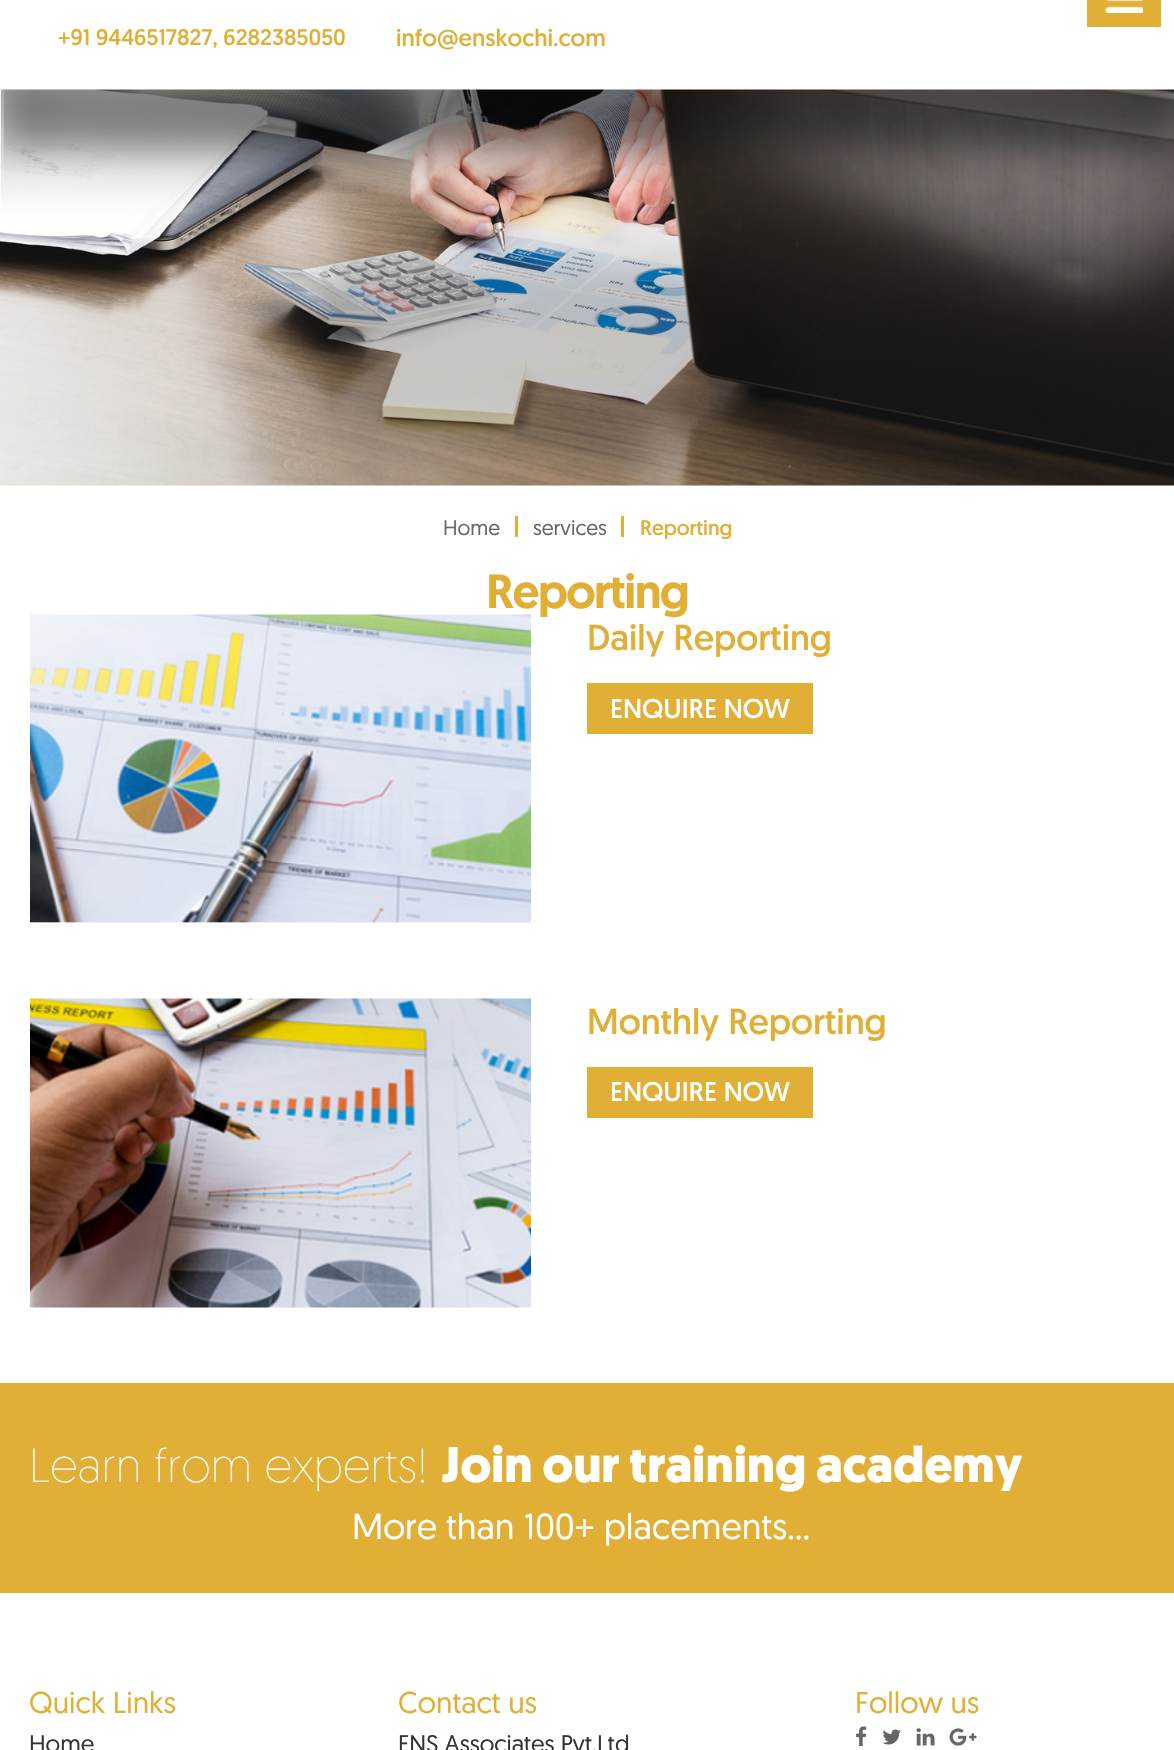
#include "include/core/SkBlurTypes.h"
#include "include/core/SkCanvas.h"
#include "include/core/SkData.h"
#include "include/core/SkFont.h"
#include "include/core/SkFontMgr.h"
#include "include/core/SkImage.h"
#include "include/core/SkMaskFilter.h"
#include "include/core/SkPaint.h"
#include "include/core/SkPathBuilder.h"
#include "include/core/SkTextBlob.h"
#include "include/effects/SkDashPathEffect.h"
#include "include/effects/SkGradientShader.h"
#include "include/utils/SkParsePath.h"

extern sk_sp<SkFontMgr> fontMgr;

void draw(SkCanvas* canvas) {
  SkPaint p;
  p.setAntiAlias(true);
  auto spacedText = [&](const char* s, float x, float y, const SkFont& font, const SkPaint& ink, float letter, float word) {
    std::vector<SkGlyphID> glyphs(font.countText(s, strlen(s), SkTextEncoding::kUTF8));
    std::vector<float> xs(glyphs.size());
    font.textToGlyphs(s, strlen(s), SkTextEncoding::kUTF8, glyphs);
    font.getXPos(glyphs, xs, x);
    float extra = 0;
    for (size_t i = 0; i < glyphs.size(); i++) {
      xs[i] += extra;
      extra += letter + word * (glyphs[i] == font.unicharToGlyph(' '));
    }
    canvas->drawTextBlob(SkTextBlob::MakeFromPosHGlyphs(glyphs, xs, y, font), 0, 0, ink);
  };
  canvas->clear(SK_ColorWHITE);
  p.setColor(SkColorSetRGB(225, 174, 54));
  canvas->drawRect(SkRect::MakeLTRB(1087, 0, 1161, 27), p);
  canvas->drawImageRect(SkImages::DeferredFromEncodedData(SkData::MakeFromFileName("images/1.png")), SkRect::MakeLTRB(1105, 0, 1143, 13), SkSamplingOptions());
  canvas->drawImageRect(SkImages::DeferredFromEncodedData(SkData::MakeFromFileName("images/2.png")), SkRect::MakeLTRB(0, 89, 1174, 486), SkSamplingOptions());
  canvas->drawRect(SkRect::MakeLTRB(515, 516, 518, 537), p);
  canvas->drawRect(SkRect::MakeLTRB(621, 516, 624, 537), p);
  canvas->drawRect(SkRect::MakeLTRB(587, 683, 813, 734), p);
  canvas->drawImageRect(SkImages::DeferredFromEncodedData(SkData::MakeFromFileName("images/4.png")), SkRect::MakeLTRB(30, 998, 531, 1308), SkSamplingOptions());
  canvas->drawRect(SkRect::MakeLTRB(587, 1067, 813, 1118), p);
  canvas->drawRect(SkRect::MakeLTRB(0, 1383, 1174, 1593), p);
  canvas->drawImageRect(SkImages::DeferredFromEncodedData(SkData::MakeFromFileName("images/5.png")), SkRect::MakeLTRB(856, 1726, 867, 1746), SkSamplingOptions());
  canvas->drawImageRect(SkImages::DeferredFromEncodedData(SkData::MakeFromFileName("images/6.png")), SkRect::MakeLTRB(882, 1729, 901, 1745), SkSamplingOptions());
  canvas->drawImageRect(SkImages::DeferredFromEncodedData(SkData::MakeFromFileName("images/7.png")), SkRect::MakeLTRB(916, 1728, 935, 1746), SkSamplingOptions());
  canvas->drawImageRect(SkImages::DeferredFromEncodedData(SkData::MakeFromFileName("images/8.png")), SkRect::MakeLTRB(949, 1728, 977, 1746), SkSamplingOptions());
  SkFont font1(fontMgr->matchFamilyStyle("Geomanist", SkFontStyle::Normal()), 22.5f);
  font1.setSubpixel(true);
  canvas->drawString("+91 9446517827, 6282385050", 58, 45, font1, p);
  SkFont font2(fontMgr->matchFamilyStyle("Geomanist", SkFontStyle::Normal()), 24);
  font2.setSubpixel(true);
  canvas->drawString("info@enskochi.com", 396, 46, font2, p);
  SkFont font3(fontMgr->matchFamilyStyle("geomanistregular", SkFontStyle::Normal()), 21);
  font3.setSubpixel(true);
  p.setColor(SkColorSetRGB(102, 102, 102));
  canvas->drawString("Home", 443, 535, font3, p);
  canvas->drawString("services", 533, 535, font3, p);
  SkFont font4(fontMgr->matchFamilyStyle("Geomanist", SkFontStyle::Normal()), 21);
  font4.setSubpixel(true);
  p.setColor(SkColorSetRGB(225, 174, 54));
  canvas->drawString("Reporting", 640, 535, font4, p);
  SkFont font5(fontMgr->matchFamilyStyle("Geomanist", SkFontStyle(500, SkFontStyle::kNormal_Width, SkFontStyle::kUpright_Slant)), 48);
  font5.setSubpixel(true);
  spacedText("Reporting", 486, 608, font5, p, -1.5f, 0);
  canvas->drawImageRect(SkImages::DeferredFromEncodedData(SkData::MakeFromFileName("images/3.png")), SkRect::MakeLTRB(30, 614, 531, 923), SkSamplingOptions());
  SkFont font6(fontMgr->matchFamilyStyle("Geomanist", SkFontStyle::Normal()), 36);
  font6.setSubpixel(true);
  canvas->drawString("Daily Reporting", 587, 650, font6, p);
  SkFont font7(fontMgr->matchFamilyStyle("Geomanist", SkFontStyle::Normal()), 27);
  font7.setSubpixel(true);
  p.setColor(SK_ColorWHITE);
  canvas->drawString("ENQUIRE NOW", 610, 718, font7, p);
  p.setColor(SkColorSetRGB(225, 174, 54));
  canvas->drawString("Monthly Reporting", 587, 1034, font6, p);
  p.setColor(SK_ColorWHITE);
  canvas->drawString("ENQUIRE NOW", 610, 1101, font7, p);
  SkFont font8(fontMgr->matchFamilyStyle("Geomanist", SkFontStyle(200, SkFontStyle::kNormal_Width, SkFontStyle::kUpright_Slant)), 48);
  font8.setSubpixel(true);
  canvas->drawString("Learn from experts!", 29, 1482, font8, p);
  SkFont font9(fontMgr->matchFamilyStyle("Geomanist", SkFontStyle::Bold()), 50);
  font9.setSubpixel(true);
  canvas->drawString("Join our training academy", 441, 1482, font9, p);
  SkFont font10(fontMgr->matchFamilyStyle("geomanistregular", SkFontStyle::Normal()), 36);
  font10.setSubpixel(true);
  canvas->drawString("More than 100+ placements...", 352, 1539, font10, p);
  SkFont font11(fontMgr->matchFamilyStyle("geomanistregular", SkFontStyle::Normal()), 30);
  font11.setSubpixel(true);
  p.setColor(SkColorSetRGB(225, 174, 54));
  canvas->drawString("Quick Links", 29, 1713, font11, p);
  SkFont font12(fontMgr->matchFamilyStyle("geomanistregular", SkFontStyle::Normal()), 24);
  font12.setSubpixel(true);
  p.setColor(SkColorSetRGB(51, 51, 51));
  canvas->drawString("Home", 29, 1752, font12, p);
  p.setColor(SkColorSetRGB(225, 174, 54));
  canvas->drawString("Contact us", 398, 1713, font11, p);
  p.setColor(SkColorSetRGB(51, 51, 51));
  canvas->drawString("ENS Associates Pvt.Ltd", 398, 1752, font12, p);
  p.setColor(SkColorSetRGB(225, 174, 54));
  canvas->drawString("Follow us", 855, 1713, font11, p);
}
